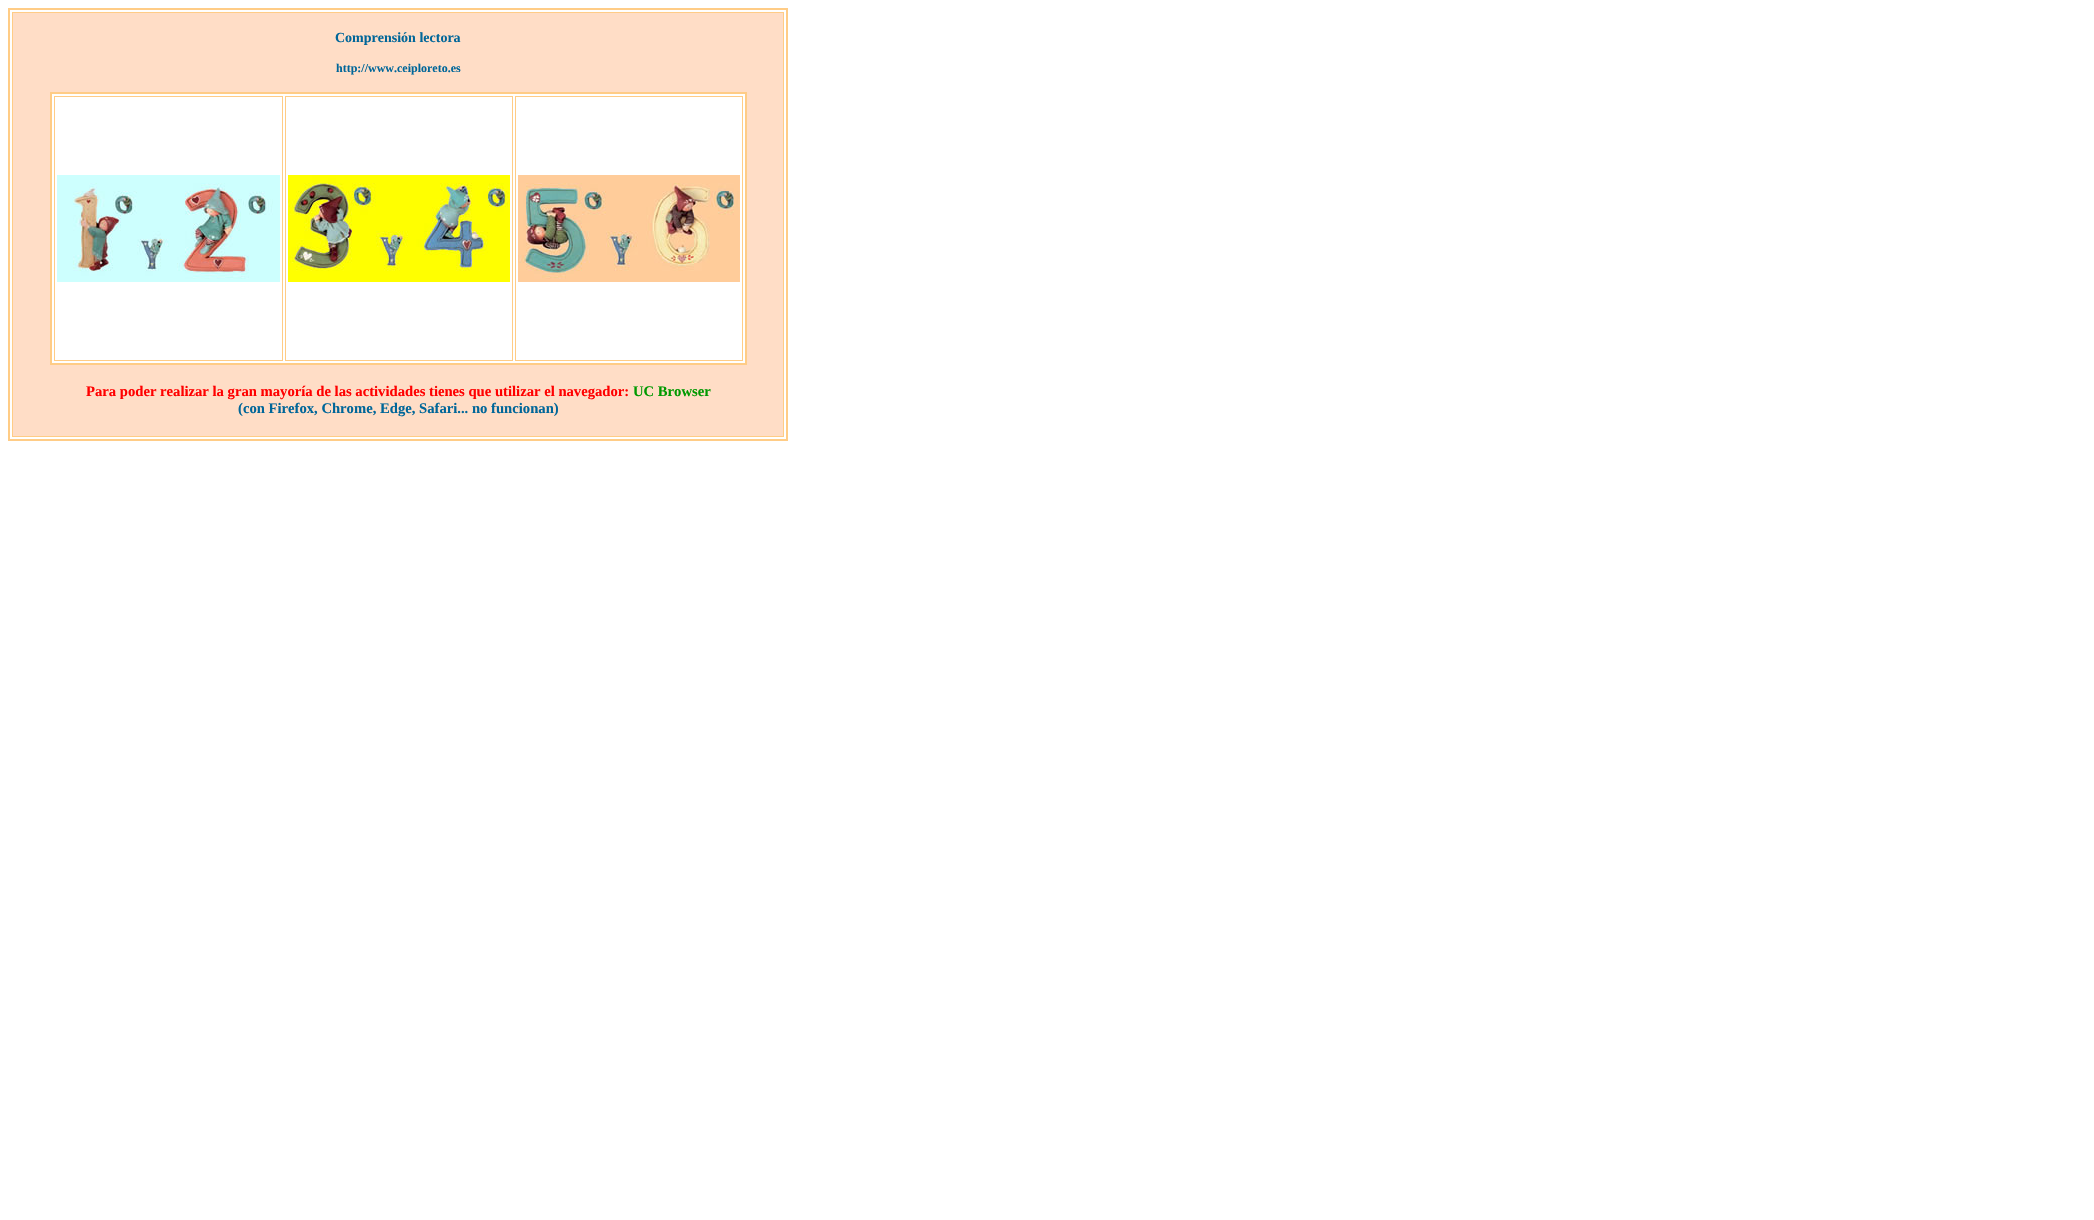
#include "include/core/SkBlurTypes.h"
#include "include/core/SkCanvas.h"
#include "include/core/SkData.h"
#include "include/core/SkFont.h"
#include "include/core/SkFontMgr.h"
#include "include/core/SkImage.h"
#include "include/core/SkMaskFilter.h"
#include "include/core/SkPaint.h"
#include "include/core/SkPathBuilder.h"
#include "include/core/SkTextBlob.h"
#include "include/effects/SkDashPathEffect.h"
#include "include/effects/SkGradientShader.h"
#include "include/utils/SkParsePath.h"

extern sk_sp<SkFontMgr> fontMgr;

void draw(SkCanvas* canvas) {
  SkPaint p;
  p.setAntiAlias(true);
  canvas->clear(SK_ColorWHITE);
  p.setStyle(SkPaint::kStroke_Style);
  p.setStrokeWidth(2);
  p.setColor(SkColorSetRGB(255, 204, 134));
  canvas->drawRect(SkRect::MakeLTRB(9, 9, 787, 440), p);
  p.setStyle(SkPaint::kFill_Style);
  p.setColor(SkColorSetRGB(255, 221, 198));
  canvas->drawRect(SkRect::MakeLTRB(12.5f, 12.5f, 783.5f, 436.5f), p);
  p.setStyle(SkPaint::kStroke_Style);
  p.setStrokeWidth(1);
  p.setColor(SkColorSetRGB(255, 204, 134));
  canvas->drawRect(SkRect::MakeLTRB(12.5f, 12.5f, 783.5f, 436.5f), p);
  p.setStyle(SkPaint::kFill_Style);
  p.setColor(SK_ColorWHITE);
  canvas->drawRect(SkRect::MakeLTRB(51, 93, 746, 364), p);
  p.setStyle(SkPaint::kStroke_Style);
  p.setStrokeWidth(2);
  p.setColor(SkColorSetRGB(255, 204, 134));
  canvas->drawRect(SkRect::MakeLTRB(51, 93, 746, 364), p);
  p.setStrokeWidth(1);
  canvas->drawRect(SkRect::MakeLTRB(54.5f, 96.5f, 282.5f, 360.5f), p);
  canvas->drawImageRect(SkImages::DeferredFromEncodedData(SkData::MakeFromFileName("images/1.png")), SkRect::MakeLTRB(57, 175, 280, 282), SkSamplingOptions());
  canvas->drawRect(SkRect::MakeLTRB(285.5f, 96.5f, 512.5f, 360.5f), p);
  canvas->drawImageRect(SkImages::DeferredFromEncodedData(SkData::MakeFromFileName("images/2.png")), SkRect::MakeLTRB(288, 175, 510, 282), SkSamplingOptions());
  canvas->drawRect(SkRect::MakeLTRB(515.5f, 96.5f, 742.5f, 360.5f), p);
  canvas->drawImageRect(SkImages::DeferredFromEncodedData(SkData::MakeFromFileName("images/3.png")), SkRect::MakeLTRB(518, 175, 740, 282), SkSamplingOptions());
  SkFont font1(fontMgr->matchFamilyStyle("Liberation Serif", SkFontStyle::Bold()), 14);
  font1.setSubpixel(true);
  p.setStyle(SkPaint::kFill_Style);
  p.setColor(SkColorSetRGB(0, 102, 153));
  canvas->drawString("Comprensión lectora", 335, 42, font1, p);
  SkFont font2(fontMgr->matchFamilyStyle("Liberation Serif", SkFontStyle::Bold()), 12);
  font2.setSubpixel(true);
  canvas->drawString("http://www.ceiploreto.es", 336, 72, font2, p);
  SkFont font3(fontMgr->matchFamilyStyle("Liberation Serif", SkFontStyle::Bold()), 14.65f);
  font3.setSubpixel(true);
  p.setColor(SkColorSetRGB(255, 0, 0));
  canvas->drawString("Para poder realizar la gran mayoría de las actividades tienes que utilizar el navegador:", 86, 396, font3, p);
  p.setColor(SkColorSetRGB(0, 153, 0));
  canvas->drawString("UC Browser", 633, 396, font3, p);
  p.setColor(SkColorSetRGB(0, 102, 153));
  canvas->drawString("(con Firefox, Chrome, Edge, Safari... no funcionan)", 238, 413, font3, p);
}
